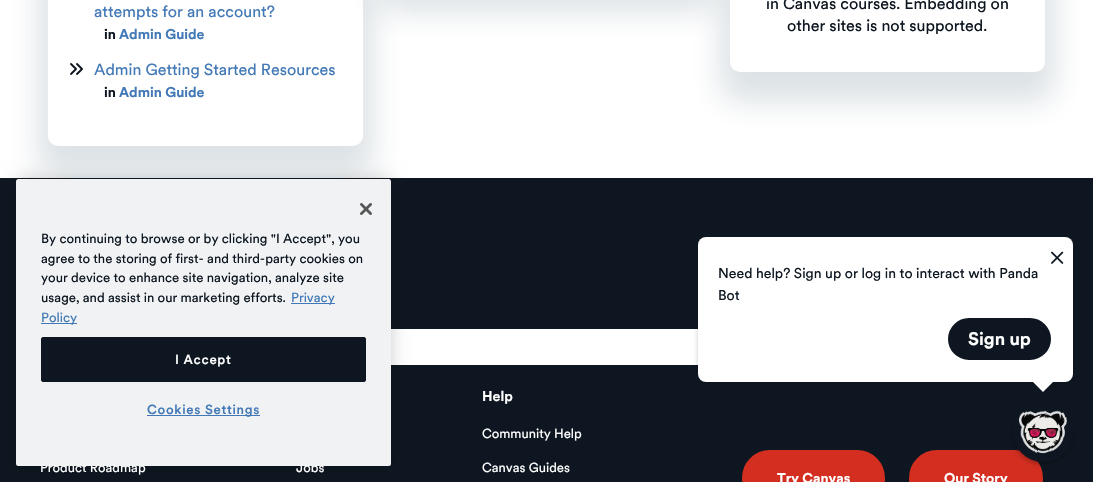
#include "include/core/SkBlurTypes.h"
#include "include/core/SkCanvas.h"
#include "include/core/SkData.h"
#include "include/core/SkFont.h"
#include "include/core/SkFontMgr.h"
#include "include/core/SkImage.h"
#include "include/core/SkMaskFilter.h"
#include "include/core/SkPaint.h"
#include "include/core/SkPathBuilder.h"
#include "include/core/SkTextBlob.h"
#include "include/effects/SkDashPathEffect.h"
#include "include/effects/SkGradientShader.h"
#include "include/utils/SkParsePath.h"

extern sk_sp<SkFontMgr> fontMgr;

void draw(SkCanvas* canvas) {
  SkPaint p;
  p.setAntiAlias(true);
  auto spacedText = [&](const char* s, float x, float y, const SkFont& font, const SkPaint& ink, float letter, float word) {
    std::vector<SkGlyphID> glyphs(font.countText(s, strlen(s), SkTextEncoding::kUTF8));
    std::vector<float> xs(glyphs.size());
    font.textToGlyphs(s, strlen(s), SkTextEncoding::kUTF8, glyphs);
    font.getXPos(glyphs, xs, x);
    float extra = 0;
    for (size_t i = 0; i < glyphs.size(); i++) {
      xs[i] += extra;
      extra += letter + word * (glyphs[i] == font.unicharToGlyph(' '));
    }
    canvas->drawTextBlob(SkTextBlob::MakeFromPosHGlyphs(glyphs, xs, y, font), 0, 0, ink);
  };
  canvas->clear(SK_ColorWHITE);
  p.setColor(SkColorSetRGB(14, 23, 33));
  canvas->drawRect(SkRect::MakeLTRB(0, 178, 1093, 482), p);
  p.setColor(SkColorSetARGB(38, 20, 61, 80));
  p.setMaskFilter(SkMaskFilter::MakeBlur(kNormal_SkBlurStyle, 15));
  canvas->drawRoundRect(SkRect::MakeLTRB(38, -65, 373, 176), 20, 20, p);
  p.setMaskFilter(nullptr);
  p.setColor(SK_ColorWHITE);
  canvas->drawRoundRect(SkRect::MakeLTRB(48, -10, 363, 146), 10, 10, p);
  canvas->drawImageRect(SkImages::DeferredFromEncodedData(SkData::MakeFromFileName("images/1.png")), SkRect::MakeLTRB(70, 63, 83, 75), SkSamplingOptions());
  p.setColor(SkColorSetARGB(38, 20, 61, 80));
  p.setMaskFilter(SkMaskFilter::MakeBlur(kNormal_SkBlurStyle, 15));
  canvas->drawRoundRect(SkRect::MakeLTRB(379, -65, 714, 12), 20, 20, p);
  p.setMaskFilter(nullptr);
  p.setMaskFilter(SkMaskFilter::MakeBlur(kNormal_SkBlurStyle, 15));
  canvas->drawRoundRect(SkRect::MakeLTRB(720, -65, 1055, 102), 20, 20, p);
  p.setMaskFilter(nullptr);
  p.setColor(SK_ColorWHITE);
  canvas->drawRoundRect(SkRect::MakeLTRB(730, -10, 1045, 72), 10, 10, p);
  canvas->drawRect(SkRect::MakeLTRB(391, 329, 698, 365), p);
  p.setColor(SkColorSetARGB(51, 0, 0, 0));
  p.setMaskFilter(SkMaskFilter::MakeBlur(kNormal_SkBlurStyle, 2.5f));
  canvas->drawRoundRect(SkRect::MakeLTRB(698, 239, 1073, 384), 8, 8, p);
  p.setMaskFilter(nullptr);
  p.setColor(SK_ColorWHITE);
  canvas->drawRoundRect(SkRect::MakeLTRB(698, 237, 1073, 382), 8, 8, p);
  canvas->drawImageRect(SkImages::DeferredFromEncodedData(SkData::MakeFromFileName("images/2.png")), SkRect::MakeLTRB(1051, 251, 1064, 264), SkSamplingOptions());
  p.setColor(SkColorSetRGB(14, 23, 33));
  canvas->drawRoundRect(SkRect::MakeLTRB(947, 317, 1052, 361), 22, 22, p);
  p.setStyle(SkPaint::kStroke_Style);
  p.setStrokeWidth(2);
  p.setColor(SK_ColorWHITE);
  canvas->drawRoundRect(SkRect::MakeLTRB(947, 317, 1052, 361), 22, 22, p);
  p.setStyle(SkPaint::kFill_Style);
  canvas->drawPath(SkPathBuilder().moveTo(1033, 382).lineTo(1053, 382).lineTo(1043, 392).close().detach(), p);
  p.setColor(SkColorSetRGB(212, 46, 33));
  canvas->drawRoundRect(SkRect::MakeLTRB(911.5f, 452.5f, 1040.5f, 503.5f), 25.5f, 25.5f, p);
  p.setStyle(SkPaint::kStroke_Style);
  p.setStrokeWidth(5);
  canvas->drawRoundRect(SkRect::MakeLTRB(911.5f, 452.5f, 1040.5f, 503.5f), 25.5f, 25.5f, p);
  p.setStyle(SkPaint::kFill_Style);
  p.setColor(SkColorSetARGB(77, 0, 0, 0));
  p.setMaskFilter(SkMaskFilter::MakeBlur(kNormal_SkBlurStyle, 2.5f));
  canvas->drawRoundRect(SkRect::MakeLTRB(1013, 404, 1073, 464), 30, 30, p);
  p.setMaskFilter(nullptr);
  p.setColor(SkColorSetRGB(14, 23, 33));
  canvas->drawCircle(1043, 432, 30, p);
  canvas->drawImageRect(SkImages::DeferredFromEncodedData(SkData::MakeFromFileName("images/3.png")), SkRect::MakeLTRB(1019, 410, 1067, 454), SkSamplingOptions());
  p.setColor(SkColorSetARGB(51, 0, 0, 0));
  p.setMaskFilter(SkMaskFilter::MakeBlur(kNormal_SkBlurStyle, 9));
  canvas->drawRoundRect(SkRect::MakeLTRB(16, 179, 391, 466), 2.5f, 2.5f, p);
  p.setMaskFilter(nullptr);
  p.setColor(SkColorSetRGB(212, 46, 33));
  canvas->drawRoundRect(SkRect::MakeLTRB(744.5f, 452.5f, 882.5f, 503.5f), 25.5f, 25.5f, p);
  p.setStyle(SkPaint::kStroke_Style);
  canvas->drawRoundRect(SkRect::MakeLTRB(744.5f, 452.5f, 882.5f, 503.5f), 25.5f, 25.5f, p);
  SkFont font1(fontMgr->matchFamilyStyle("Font", SkFontStyle::Normal()), 16);
  font1.setSubpixel(true);
  p.setStyle(SkPaint::kFill_Style);
  p.setColor(SkColorSetRGB(66, 121, 182));
  canvas->drawString("attempts for an account?", 94, 17, font1, p);
  SkFont font2(fontMgr->matchFamilyStyle("Font", SkFontStyle::Bold()), 14);
  font2.setSubpixel(true);
  p.setColor(SkColorSetRGB(14, 23, 33));
  canvas->drawString("in", 104, 39, font2, p);
  p.setColor(SkColorSetRGB(66, 121, 182));
  canvas->drawString("Admin Guide", 119, 39, font2, p);
  canvas->drawString("Admin Getting Started Resources", 94, 75, font1, p);
  p.setColor(SkColorSetRGB(14, 23, 33));
  canvas->drawString("in", 104, 97, font2, p);
  p.setColor(SkColorSetRGB(66, 121, 182));
  canvas->drawString("Admin Guide", 119, 97, font2, p);
  p.setColor(SkColorSetRGB(14, 23, 33));
  canvas->drawString("in Canvas courses. Embedding on", 766, 9, font1, p);
  canvas->drawString("other sites is not supported.", 787, 31, font1, p);
  SkFont font3(fontMgr->matchFamilyStyle("Font", SkFontStyle::Normal()), 14);
  font3.setSubpixel(true);
  canvas->drawString("Need help? Sign up or log in to interact with Panda", 718, 278, font3, p);
  canvas->drawString("Bot", 718, 300, font3, p);
  SkFont font4(fontMgr->matchFamilyStyle("Font", SkFontStyle::Bold()), 18);
  font4.setSubpixel(true);
  p.setColor(SK_ColorWHITE);
  canvas->drawString("Sign up", 968, 345, font4, p);
  SkFont font5(fontMgr->matchFamilyStyle("Font", SkFontStyle::Normal()), 13);
  font5.setSubpixel(true);
  canvas->drawString("Product Roadmap", 40, 472, font5, p);
  canvas->drawString("Jobs", 296, 472, font5, p);
  p.setColor(SkColorSetRGB(240, 242, 243));
  canvas->drawRoundRect(SkRect::MakeLTRB(16, 179, 391, 466), 2.5f, 2.5f, p);
  canvas->drawImageRect(SkImages::DeferredFromEncodedData(SkData::MakeFromFileName("images/4.png")), SkRect::MakeLTRB(360, 203, 372, 215), SkSamplingOptions());
  p.setColor(SkColorSetRGB(66, 121, 182));
  canvas->drawRect(SkRect::MakeLTRB(147, 415, 260, 416), p);
  SkFont font6(fontMgr->matchFamilyStyle("Font", SkFontStyle(500, SkFontStyle::kNormal_Width, SkFontStyle::kUpright_Slant)), 13.1f);
  font6.setSubpixel(true);
  spacedText("Cookies Settings", 147, 414, font6, p, 0.7f, 0);
  p.setColor(SkColorSetRGB(14, 23, 33));
  canvas->drawRoundRect(SkRect::MakeLTRB(41.5f, 337.5f, 365.5f, 381.5f), 1.5f, 1.5f, p);
  p.setStyle(SkPaint::kStroke_Style);
  p.setStrokeWidth(1);
  canvas->drawRoundRect(SkRect::MakeLTRB(41.5f, 337.5f, 365.5f, 381.5f), 1.5f, 1.5f, p);
  p.setStyle(SkPaint::kFill_Style);
  p.setColor(SK_ColorWHITE);
  spacedText("I Accept", 175, 364, font6, p, 0.7f, 0);
  p.setColor(SkColorSetRGB(66, 121, 182));
  canvas->drawRect(SkRect::MakeLTRB(41, 323, 77, 324), p);
  SkFont font7(fontMgr->matchFamilyStyle("Font", SkFontStyle::Normal()), 13.1f);
  font7.setSubpixel(true);
  canvas->drawString("Policy", 41, 322, font7, p);
  canvas->drawRect(SkRect::MakeLTRB(291, 303, 335, 304), p);
  canvas->drawString("Privacy", 291, 302, font7, p);
  p.setColor(SkColorSetRGB(14, 23, 33));
  canvas->drawString("usage, and assist in our marketing efforts.", 41, 302, font7, p);
  canvas->drawString("your device to enhance site navigation, analyze site", 41, 282, font7, p);
  canvas->drawString("agree to the storing of first- and third-party cookies on", 41, 263, font7, p);
  canvas->drawString("By continuing to browse or by clicking \"I Accept\", you", 41, 243, font7, p);
  p.setColor(SK_ColorWHITE);
  canvas->drawString("Help", 482, 401, font2, p);
  canvas->drawString("Community Help", 482, 438, font5, p);
  canvas->drawString("Canvas Guides", 482, 472, font5, p);
  canvas->drawString("Try Canvas", 777, 483, font2, p);
  canvas->drawString("Our Story", 944, 483, font2, p);
}
